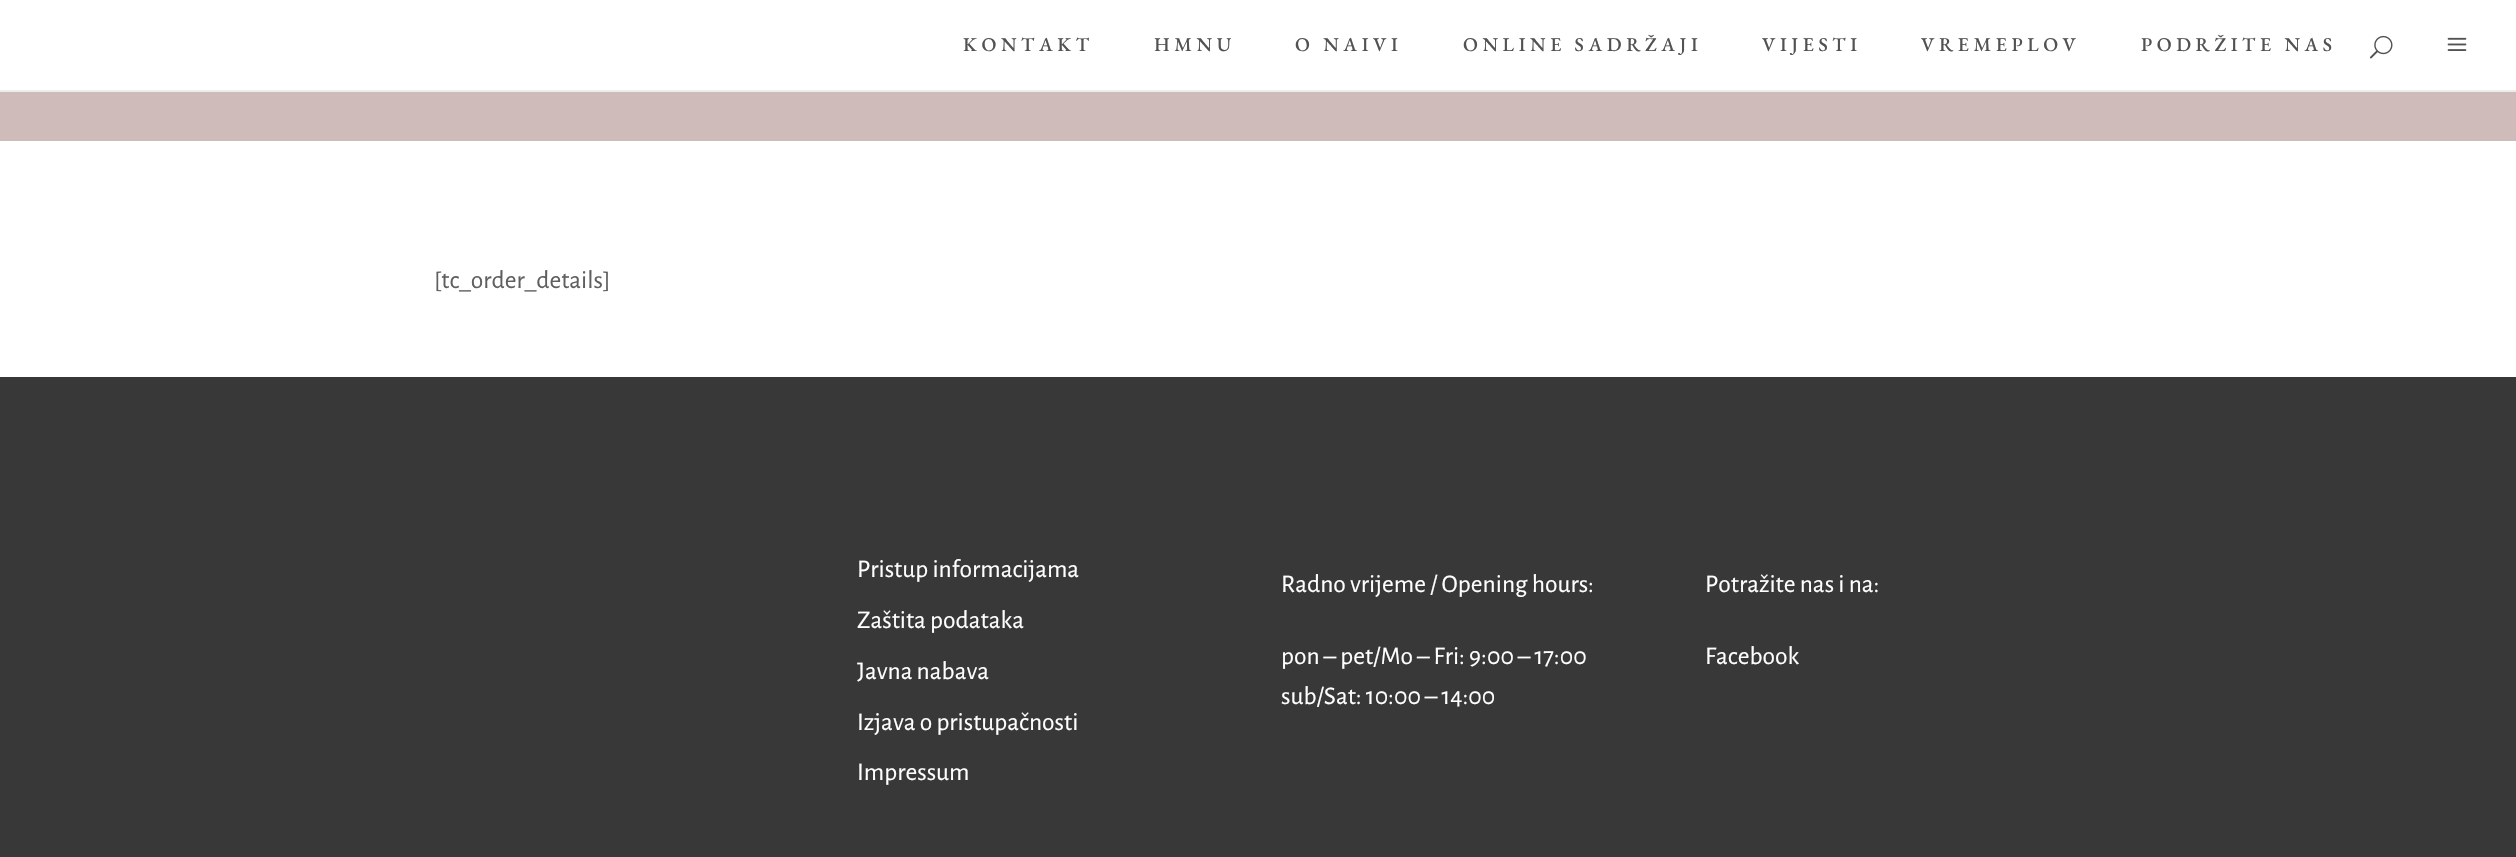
#include "include/core/SkBlurTypes.h"
#include "include/core/SkCanvas.h"
#include "include/core/SkData.h"
#include "include/core/SkFont.h"
#include "include/core/SkFontMgr.h"
#include "include/core/SkImage.h"
#include "include/core/SkMaskFilter.h"
#include "include/core/SkPaint.h"
#include "include/core/SkPathBuilder.h"
#include "include/core/SkTextBlob.h"
#include "include/effects/SkDashPathEffect.h"
#include "include/effects/SkGradientShader.h"
#include "include/utils/SkParsePath.h"

extern sk_sp<SkFontMgr> fontMgr;

void draw(SkCanvas* canvas) {
  SkPaint p;
  p.setAntiAlias(true);
  auto spacedText = [&](const char* s, float x, float y, const SkFont& font, const SkPaint& ink, float letter, float word) {
    std::vector<SkGlyphID> glyphs(font.countText(s, strlen(s), SkTextEncoding::kUTF8));
    std::vector<float> xs(glyphs.size());
    font.textToGlyphs(s, strlen(s), SkTextEncoding::kUTF8, glyphs);
    font.getXPos(glyphs, xs, x);
    float extra = 0;
    for (size_t i = 0; i < glyphs.size(); i++) {
      xs[i] += extra;
      extra += letter + word * (glyphs[i] == font.unicharToGlyph(' '));
    }
    canvas->drawTextBlob(SkTextBlob::MakeFromPosHGlyphs(glyphs, xs, y, font), 0, 0, ink);
  };
  canvas->clear(SK_ColorWHITE);
  p.setColor(SkColorSetRGB(236, 236, 236));
  canvas->drawRect(SkRect::MakeLTRB(0, 90, 2516, 92), p);
  canvas->drawImageRect(SkImages::DeferredFromEncodedData(SkData::MakeFromFileName("images/1.png")), SkRect::MakeLTRB(2369, 35, 2393, 59), SkSamplingOptions());
  canvas->drawImageRect(SkImages::DeferredFromEncodedData(SkData::MakeFromFileName("images/2.png")), SkRect::MakeLTRB(2447, 37, 2467, 51), SkSamplingOptions());
  p.setColor(SkColorSetRGB(208, 187, 187));
  canvas->drawRect(SkRect::MakeLTRB(0, 92, 2516, 141), p);
  p.setColor(SkColorSetRGB(56, 56, 56));
  canvas->drawRect(SkRect::MakeLTRB(0, 377, 2516, 857), p);
  SkFont font1(fontMgr->matchFamilyStyle("EB Garamond", SkFontStyle(500, SkFontStyle::kNormal_Width, SkFontStyle::kUpright_Slant)), 19.5f);
  font1.setSubpixel(true);
  p.setColor(SkColorSetRGB(82, 82, 82));
  spacedText("KONTAKT", 963, 51, font1, p, 4.6f, 0);
  spacedText("HMNU", 1154, 51, font1, p, 4.6f, 0);
  spacedText("O NAIVI", 1295, 51, font1, p, 4.6f, 0);
  spacedText("ONLINE SADRŽAJI", 1463, 51, font1, p, 4.6f, 0);
  spacedText("VIJESTI", 1762, 51, font1, p, 4.6f, 0);
  spacedText("VREMEPLOV", 1921, 51, font1, p, 4.6f, 0);
  spacedText("PODRŽITE NAS", 2141, 51, font1, p, 4.6f, 0);
  SkFont font2(fontMgr->matchFamilyStyle("Alegreya Sans", SkFontStyle::Normal()), 25.5f);
  font2.setSubpixel(true);
  p.setColor(SkColorSetRGB(95, 95, 95));
  canvas->drawString("[tc_order_details]", 434, 288, font2, p);
  p.setColor(SK_ColorWHITE);
  canvas->drawString("Pristup informacijama", 857, 577, font2, p);
  canvas->drawString("Zaštita podataka", 857, 628, font2, p);
  canvas->drawString("Javna nabava", 857, 679, font2, p);
  canvas->drawString("Izjava o pristupačnosti", 857, 730, font2, p);
  canvas->drawString("Impressum", 857, 780, font2, p);
  canvas->drawString("Radno vrijeme / Opening hours:", 1281, 592, font2, p);
  canvas->drawString("pon – pet/Mo – Fri: 9:00 – 17:00", 1281, 664, font2, p);
  canvas->drawString("sub/Sat: 10:00 – 14:00", 1281, 704, font2, p);
  canvas->drawString("Potražite nas i na:", 1705, 592, font2, p);
  canvas->drawString("Facebook", 1705, 664, font2, p);
}
